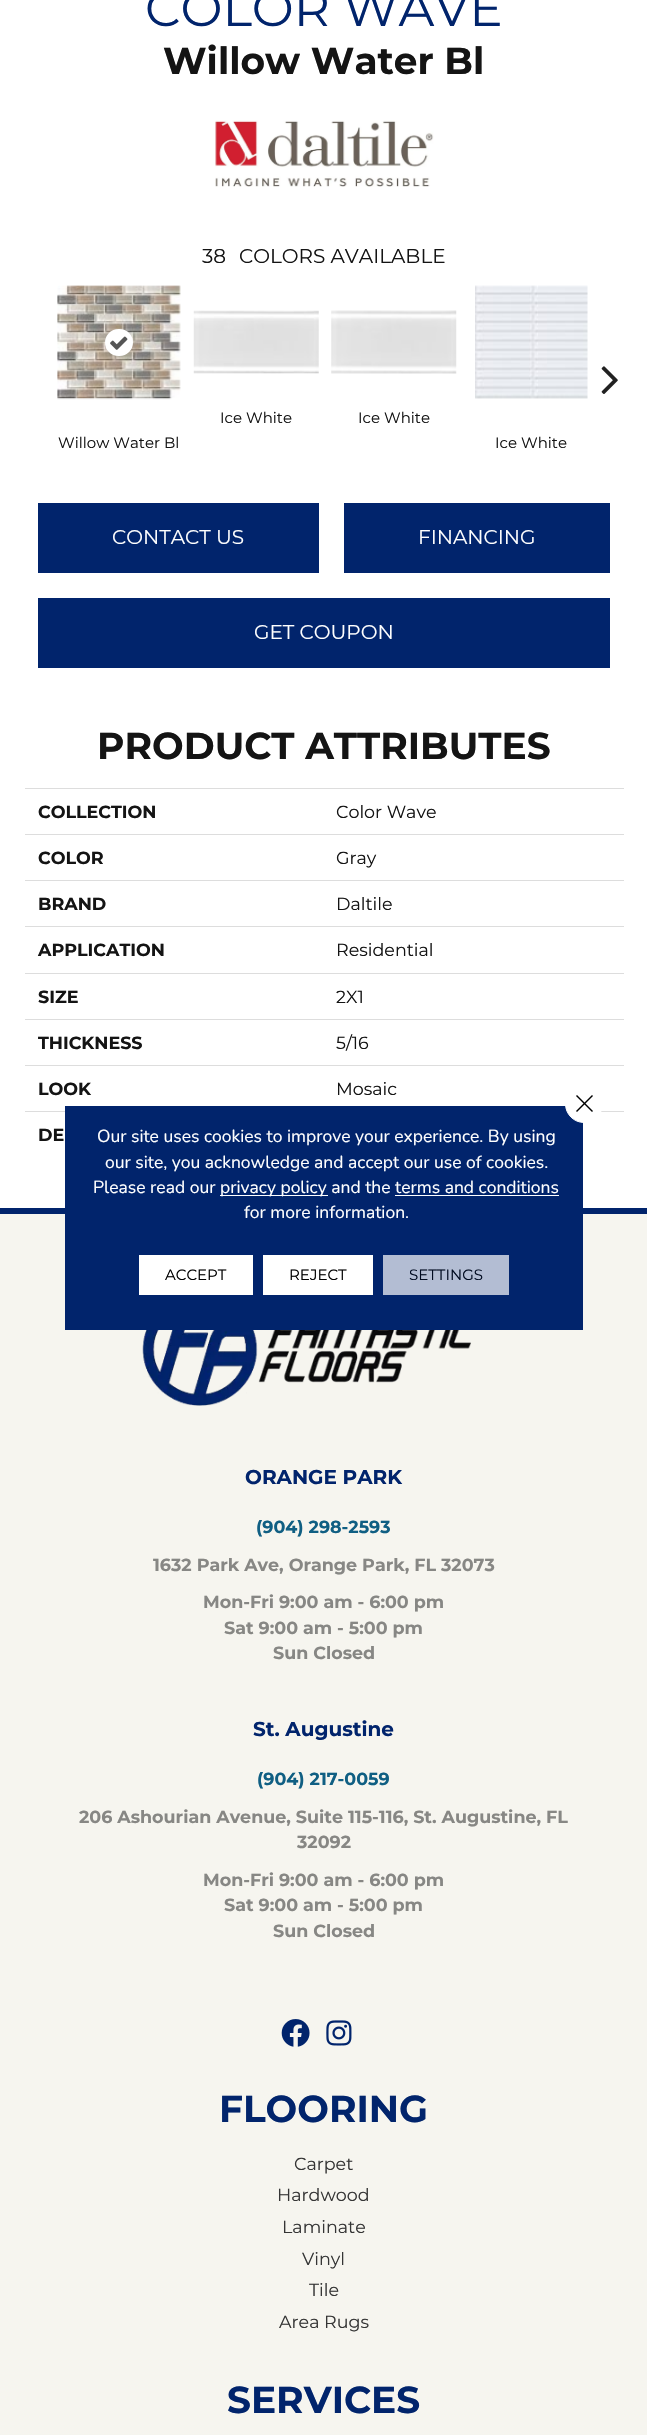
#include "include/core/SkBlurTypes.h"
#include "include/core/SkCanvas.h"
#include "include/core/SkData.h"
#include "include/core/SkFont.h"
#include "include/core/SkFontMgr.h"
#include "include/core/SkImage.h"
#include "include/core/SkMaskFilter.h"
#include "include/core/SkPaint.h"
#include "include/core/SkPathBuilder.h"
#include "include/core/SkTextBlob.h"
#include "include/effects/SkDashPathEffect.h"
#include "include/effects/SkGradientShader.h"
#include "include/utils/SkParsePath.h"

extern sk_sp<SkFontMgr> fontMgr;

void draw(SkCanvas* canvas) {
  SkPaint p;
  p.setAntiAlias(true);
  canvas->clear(SK_ColorWHITE);
  canvas->drawImageRect(SkImages::DeferredFromEncodedData(SkData::MakeFromFileName("images/1.png")), SkRect::MakeLTRB(215, 120, 434, 187), SkSamplingOptions());
  canvas->drawImageRect(SkImages::DeferredFromEncodedData(SkData::MakeFromFileName("images/2.png")), SkRect::MakeLTRB(601, 366, 618, 394), SkSamplingOptions());
  canvas->drawImageRect(SkImages::DeferredFromEncodedData(SkData::MakeFromFileName("images/3.png")), SkRect::MakeLTRB(193, 310, 319, 374), SkSamplingOptions());
  canvas->drawImageRect(SkImages::DeferredFromEncodedData(SkData::MakeFromFileName("images/4.png")), SkRect::MakeLTRB(331, 310, 457, 374), SkSamplingOptions());
  canvas->drawImageRect(SkImages::DeferredFromEncodedData(SkData::MakeFromFileName("images/5.png")), SkRect::MakeLTRB(57, 285, 181, 400), SkSamplingOptions());
  p.setColor(SK_ColorWHITE);
  canvas->drawRoundRect(SkRect::MakeLTRB(105, 329, 133, 356), 13.5f, 13.5f, p);
  canvas->drawImageRect(SkImages::DeferredFromEncodedData(SkData::MakeFromFileName("images/6.png")), SkRect::MakeLTRB(110, 336, 128, 350), SkSamplingOptions());
  canvas->drawImageRect(SkImages::DeferredFromEncodedData(SkData::MakeFromFileName("images/7.png")), SkRect::MakeLTRB(475, 285, 588, 399), SkSamplingOptions());
  p.setColor(SkColorSetRGB(1, 36, 108));
  canvas->drawRect(SkRect::MakeLTRB(38, 503, 319, 573), p);
  canvas->drawRect(SkRect::MakeLTRB(344, 503, 610, 573), p);
  canvas->drawRect(SkRect::MakeLTRB(38, 598, 610, 668), p);
  p.setColor(SkColorSetRGB(221, 221, 221));
  canvas->drawRect(SkRect::MakeLTRB(25, 788, 624, 789), p);
  canvas->drawRect(SkRect::MakeLTRB(25, 834, 624, 835), p);
  canvas->drawRect(SkRect::MakeLTRB(25, 880, 624, 881), p);
  canvas->drawRect(SkRect::MakeLTRB(25, 926, 624, 927), p);
  canvas->drawRect(SkRect::MakeLTRB(25, 973, 624, 974), p);
  canvas->drawRect(SkRect::MakeLTRB(25, 1019, 624, 1020), p);
  canvas->drawRect(SkRect::MakeLTRB(25, 1065, 624, 1066), p);
  canvas->drawRect(SkRect::MakeLTRB(601, 1111, 624, 1112), p);
  canvas->drawRect(SkRect::MakeLTRB(25, 1111, 65, 1112), p);
  p.setColor(SkColorSetRGB(246, 245, 239));
  canvas->drawRect(SkRect::MakeLTRB(0, 1214, 647, 2435), p);
  p.setColor(SkColorSetRGB(1, 36, 108));
  canvas->drawRect(SkRect::MakeLTRB(0, 1208, 647, 1214), p);
  canvas->drawImageRect(SkImages::DeferredFromEncodedData(SkData::MakeFromFileName("images/8.png")), SkRect::MakeLTRB(142, 1330, 472, 1406), SkSamplingOptions());
  canvas->drawImageRect(SkImages::DeferredFromEncodedData(SkData::MakeFromFileName("images/9.png")), SkRect::MakeLTRB(281, 2019, 310, 2047), SkSamplingOptions());
  canvas->drawImageRect(SkImages::DeferredFromEncodedData(SkData::MakeFromFileName("images/10.png")), SkRect::MakeLTRB(326, 2020, 352, 2046), SkSamplingOptions());
  canvas->drawRect(SkRect::MakeLTRB(65, 1106, 583, 1330), p);
  p.setColor(SK_ColorWHITE);
  canvas->drawRect(SkRect::MakeLTRB(220, 1195, 328, 1196), p);
  canvas->drawRect(SkRect::MakeLTRB(395, 1195, 559, 1196), p);
  canvas->drawCircle(584, 1104, 18.5f, p);
  p.setStyle(SkPaint::kStroke_Style);
  p.setStrokeWidth(1);
  canvas->drawCircle(584, 1104, 18.5f, p);
  p.setStyle(SkPaint::kFill_Style);
  p.setColor(SK_ColorBLACK);
  canvas->drawPath(SkPathBuilder().moveTo(592, 1095).lineTo(593, 1096).lineTo(577, 1112).lineTo(576, 1111).close().detach(), p);
  canvas->drawPath(SkPathBuilder().moveTo(576, 1096).lineTo(577, 1095).lineTo(593, 1111).lineTo(592, 1112).close().detach(), p);
  p.setColor(SK_ColorWHITE);
  canvas->drawRect(SkRect::MakeLTRB(139, 1255, 253, 1295), p);
  canvas->drawRect(SkRect::MakeLTRB(263, 1255, 373, 1295), p);
  p.setColor(SkColorSetRGB(179, 189, 211));
  canvas->drawRect(SkRect::MakeLTRB(383, 1255, 509, 1295), p);
  SkFont font1(fontMgr->matchFamilyStyle("Montserrat", SkFontStyle::Normal()), 50);
  font1.setSubpixel(true);
  p.setColor(SkColorSetRGB(1, 36, 108));
  canvas->drawString("COLOR WAVE", 145, 26, font1, p);
  SkFont font2(fontMgr->matchFamilyStyle("Montserrat", SkFontStyle::Bold()), 37.5f);
  font2.setSubpixel(true);
  p.setColor(SkColorSetRGB(20, 20, 20));
  canvas->drawString("Willow Water Bl", 163, 74, font2, p);
  SkFont font3(fontMgr->matchFamilyStyle("Montserrat", SkFontStyle::Normal()), 20);
  font3.setSubpixel(true);
  canvas->drawString("38", 202, 263, font3, p);
  canvas->drawString("COLORS AVAILABLE", 239, 263, font3, p);
  SkFont font4(fontMgr->matchFamilyStyle("Montserrat", SkFontStyle::Normal()), 15);
  font4.setSubpixel(true);
  canvas->drawString("Ice White", 220, 423, font4, p);
  canvas->drawString("Ice White", 358, 423, font4, p);
  canvas->drawString("Willow Water Bl", 58, 448, font4, p);
  canvas->drawString("Ice White", 495, 448, font4, p);
  p.setColor(SK_ColorWHITE);
  canvas->drawString("CONTACT US", 112, 544, font3, p);
  canvas->drawString("FINANCING", 418, 544, font3, p);
  canvas->drawString("GET COUPON", 254, 639, font3, p);
  p.setColor(SkColorSetRGB(20, 20, 20));
  canvas->drawString("PRODUCT ATTRIBUTES", 97, 759, font2, p);
  SkFont font5(fontMgr->matchFamilyStyle("Montserrat", SkFontStyle::Bold()), 17.5f);
  font5.setSubpixel(true);
  canvas->drawString("COLLECTION", 38, 818, font5, p);
  SkFont font6(fontMgr->matchFamilyStyle("Montserrat", SkFontStyle::Normal()), 17.5f);
  font6.setSubpixel(true);
  canvas->drawString("Color Wave", 336, 818, font6, p);
  canvas->drawString("COLOR", 38, 864, font5, p);
  canvas->drawString("Gray", 336, 864, font6, p);
  canvas->drawString("BRAND", 38, 910, font5, p);
  canvas->drawString("Daltile", 336, 910, font6, p);
  canvas->drawString("APPLICATION", 38, 956, font5, p);
  canvas->drawString("Residential", 336, 956, font6, p);
  canvas->drawString("SIZE", 38, 1003, font5, p);
  canvas->drawString("2X1", 336, 1003, font6, p);
  canvas->drawString("THICKNESS", 38, 1049, font5, p);
  canvas->drawString("5/16", 336, 1049, font6, p);
  canvas->drawString("LOOK", 38, 1095, font5, p);
  canvas->drawString("Mosaic", 336, 1095, font6, p);
  canvas->drawString("DE", 38, 1141, font5, p);
  SkFont font7(fontMgr->matchFamilyStyle("Montserrat", SkFontStyle::Bold()), 20);
  font7.setSubpixel(true);
  p.setColor(SkColorSetRGB(1, 36, 108));
  canvas->drawString("ORANGE PARK", 245, 1484, font7, p);
  p.setColor(SkColorSetRGB(16, 95, 131));
  canvas->drawString("(904) 298-2593", 256, 1533, font5, p);
  p.setColor(SkColorSetRGB(135, 135, 132));
  canvas->drawString("1632 Park Ave, Orange Park, FL 32073", 153, 1571, font5, p);
  canvas->drawString("Mon-Fri 9:00 am - 6:00 pm", 203, 1608, font5, p);
  canvas->drawString("Sat 9:00 am - 5:00 pm", 224, 1634, font5, p);
  canvas->drawString("Sun Closed", 273, 1659, font5, p);
  p.setColor(SkColorSetRGB(1, 36, 108));
  canvas->drawString("St. Augustine", 253, 1736, font7, p);
  p.setColor(SkColorSetRGB(16, 95, 131));
  canvas->drawString("(904) 217-0059", 257, 1785, font5, p);
  p.setColor(SkColorSetRGB(135, 135, 132));
  canvas->drawString("206 Ashourian Avenue, Suite 115-116, St. Augustine, FL", 79, 1823, font5, p);
  canvas->drawString("32092", 297, 1848, font5, p);
  canvas->drawString("Mon-Fri 9:00 am - 6:00 pm", 203, 1886, font5, p);
  canvas->drawString("Sat 9:00 am - 5:00 pm", 224, 1911, font5, p);
  canvas->drawString("Sun Closed", 273, 1937, font5, p);
  p.setColor(SkColorSetRGB(1, 36, 108));
  canvas->drawString("FLOORING", 219, 2122, font2, p);
  p.setColor(SkColorSetRGB(53, 53, 53));
  canvas->drawString("Carpet", 294, 2170, font6, p);
  canvas->drawString("Hardwood", 277, 2201, font6, p);
  canvas->drawString("Laminate", 282, 2233, font6, p);
  canvas->drawString("Vinyl", 302, 2265, font6, p);
  canvas->drawString("Tile", 309, 2296, font6, p);
  canvas->drawString("Area Rugs", 279, 2328, font6, p);
  p.setColor(SkColorSetRGB(1, 36, 108));
  canvas->drawString("SERVICES", 227, 2413, font2, p);
  SkFont font8(fontMgr->matchFamilyStyle("Nunito", SkFontStyle::Normal()), 17.5f);
  font8.setSubpixel(true);
  p.setColor(SK_ColorWHITE);
  canvas->drawString("Our site uses cookies to improve your experience. By using", 97, 1142, font8, p);
  canvas->drawString("our site, you acknowledge and accept our use of cookies.", 105, 1168, font8, p);
  canvas->drawString("Please read our", 93, 1193, font8, p);
  canvas->drawString("privacy policy and the terms and conditions", 220, 1193, font8, p);
  canvas->drawString("for more information.", 244, 1218, font8, p);
  p.setColor(SK_ColorBLACK);
  canvas->drawString("ACCEPT", 165, 1280, font4, p);
  canvas->drawString("REJECT", 289, 1280, font4, p);
  p.setColor(SkColorSetRGB(0, 11, 32));
  canvas->drawString("SETTINGS", 409, 1280, font4, p);
}
